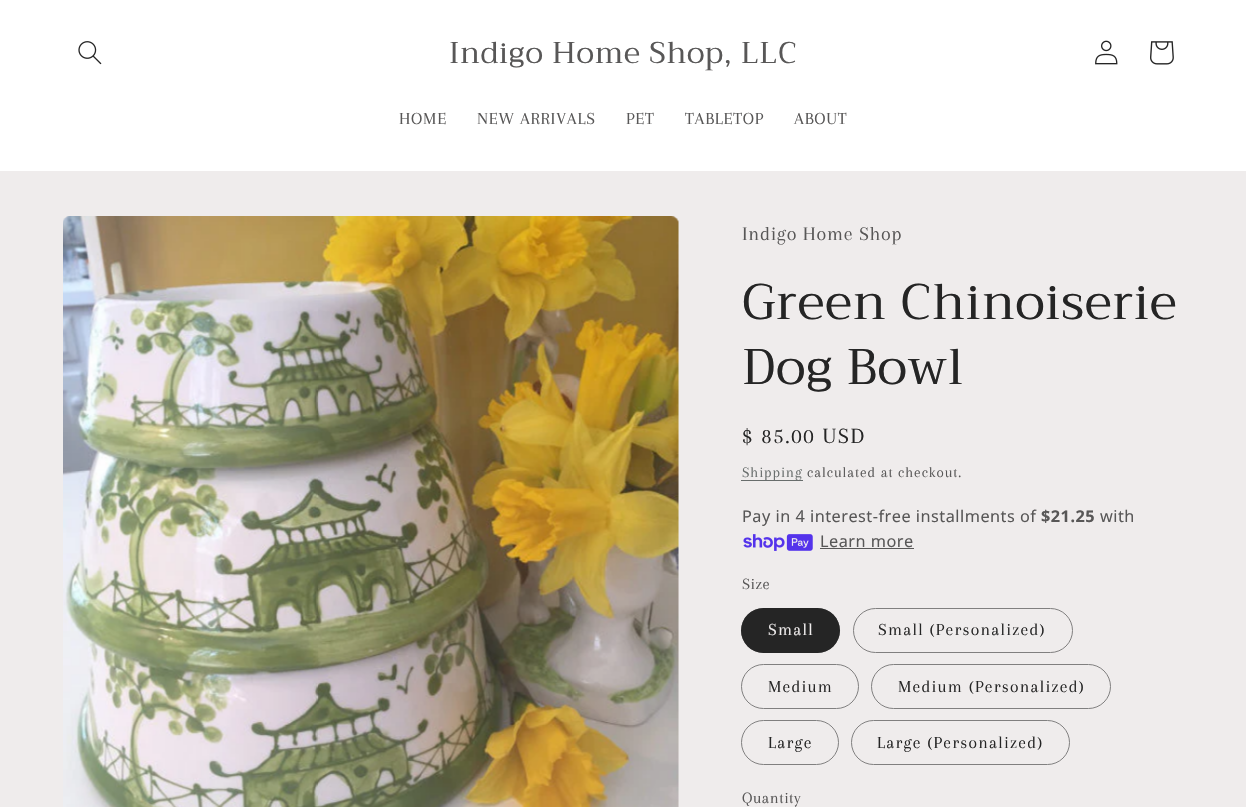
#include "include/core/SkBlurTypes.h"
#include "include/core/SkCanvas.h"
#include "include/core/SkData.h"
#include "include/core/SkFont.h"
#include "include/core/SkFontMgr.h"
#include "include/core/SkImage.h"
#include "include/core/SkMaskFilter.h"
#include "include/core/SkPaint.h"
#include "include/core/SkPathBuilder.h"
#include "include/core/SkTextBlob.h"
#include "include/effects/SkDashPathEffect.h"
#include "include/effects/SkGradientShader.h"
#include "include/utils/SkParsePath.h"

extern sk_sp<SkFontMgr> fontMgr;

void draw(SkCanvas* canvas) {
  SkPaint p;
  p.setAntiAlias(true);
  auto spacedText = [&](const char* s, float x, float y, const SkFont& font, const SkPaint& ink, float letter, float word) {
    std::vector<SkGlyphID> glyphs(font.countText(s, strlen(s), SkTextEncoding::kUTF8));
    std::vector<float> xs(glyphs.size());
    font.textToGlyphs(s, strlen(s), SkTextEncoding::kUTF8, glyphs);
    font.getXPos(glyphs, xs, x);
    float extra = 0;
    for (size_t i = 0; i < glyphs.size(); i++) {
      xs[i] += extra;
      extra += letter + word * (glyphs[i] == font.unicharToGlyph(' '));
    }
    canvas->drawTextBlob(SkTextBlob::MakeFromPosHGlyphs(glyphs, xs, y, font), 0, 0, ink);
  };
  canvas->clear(SkColorSetRGB(239, 236, 236));
  p.setColor(SK_ColorWHITE);
  canvas->drawRect(SkRect::MakeLTRB(0, 0, 1246, 171), p);
  canvas->drawImageRect(SkImages::DeferredFromEncodedData(SkData::MakeFromFileName("images/1.png")), SkRect::MakeLTRB(78, 41, 102, 65), SkSamplingOptions());
  canvas->drawImageRect(SkImages::DeferredFromEncodedData(SkData::MakeFromFileName("images/2.png")), SkRect::MakeLTRB(1095, 40, 1118, 65), SkSamplingOptions());
  canvas->drawImageRect(SkImages::DeferredFromEncodedData(SkData::MakeFromFileName("images/3.png")), SkRect::MakeLTRB(1150, 41, 1174, 65), SkSamplingOptions());
  canvas->drawImageRect(SkImages::DeferredFromEncodedData(SkData::MakeFromFileName("images/4.png")), SkRect::MakeLTRB(63, 216, 679, 807), SkSamplingOptions());
  p.setColor(SkColorSetRGB(104, 109, 108));
  canvas->drawRect(SkRect::MakeLTRB(741, 480, 803, 481), p);
  canvas->drawImageRect(SkImages::DeferredFromEncodedData(SkData::MakeFromFileName("images/5.png")), SkRect::MakeLTRB(743, 534, 813, 551), SkSamplingOptions());
  p.setColor(SkColorSetRGB(88, 87, 87));
  canvas->drawRect(SkRect::MakeLTRB(820, 548, 914, 549), p);
  p.setColor(SkColorSetRGB(37, 37, 37));
  canvas->drawRoundRect(SkRect::MakeLTRB(741, 608, 840, 653), 22.5f, 22.5f, p);
  p.setStyle(SkPaint::kStroke_Style);
  p.setStrokeWidth(1);
  p.setColor(SkColorSetARGB(140, 37, 37, 37));
  canvas->drawRoundRect(SkRect::MakeLTRB(741.5f, 608.5f, 839.5f, 652.5f), 22, 22, p);
  p.setColor(SkColorSetRGB(128, 127, 127));
  canvas->drawRoundRect(SkRect::MakeLTRB(853.5f, 608.5f, 1072.5f, 652.5f), 22, 22, p);
  canvas->drawRoundRect(SkRect::MakeLTRB(741.5f, 664.5f, 858.5f, 708.5f), 22, 22, p);
  canvas->drawRoundRect(SkRect::MakeLTRB(871.5f, 664.5f, 1110.5f, 708.5f), 22, 22, p);
  canvas->drawRoundRect(SkRect::MakeLTRB(741.5f, 720.5f, 838.5f, 764.5f), 22, 22, p);
  canvas->drawRoundRect(SkRect::MakeLTRB(851.5f, 720.5f, 1069.5f, 764.5f), 22, 22, p);
  SkFont font1(fontMgr->matchFamilyStyle("Trirong", SkFontStyle::Normal()), 30);
  font1.setSubpixel(true);
  p.setStyle(SkPaint::kFill_Style);
  p.setColor(SkColorSetRGB(88, 87, 87));
  spacedText("Indigo Home Shop, LLC", 449, 63, font1, p, 0.75f, 0);
  SkFont font2(fontMgr->matchFamilyStyle("Arapey", SkFontStyle::Normal()), 17.5f);
  font2.setSubpixel(true);
  spacedText("HOME", 399, 124, font2, p, 0.75f, 0);
  spacedText("NEW ARRIVALS", 477, 124, font2, p, 0.75f, 0);
  spacedText("PET", 626, 124, font2, p, 0.75f, 0);
  spacedText("TABLETOP", 685, 124, font2, p, 0.75f, 0);
  spacedText("ABOUT", 794, 124, font2, p, 0.75f, 0);
  SkFont font3(fontMgr->matchFamilyStyle("Arapey", SkFontStyle::Normal()), 20);
  font3.setSubpixel(true);
  spacedText("Indigo Home Shop", 742, 240, font3, p, 0.75f, 0);
  SkFont font4(fontMgr->matchFamilyStyle("Trirong", SkFontStyle::Normal()), 50);
  font4.setSubpixel(true);
  p.setColor(SkColorSetRGB(37, 37, 37));
  spacedText("Green Chinoiserie", 742, 319, font4, p, 0.75f, 0);
  spacedText("Dog Bowl", 742, 384, font4, p, 0.75f, 0);
  SkFont font5(fontMgr->matchFamilyStyle("Arapey", SkFontStyle::Normal()), 22.5f);
  font5.setSubpixel(true);
  spacedText("$ 85.00 USD", 742, 443, font5, p, 1.6f, 0);
  SkFont font6(fontMgr->matchFamilyStyle("Arapey", SkFontStyle::Normal()), 15);
  font6.setSubpixel(true);
  p.setColor(SkColorSetRGB(103, 108, 107));
  spacedText("Shipping", 742, 477, font6, p, 0.9f, 0);
  p.setColor(SkColorSetRGB(88, 87, 87));
  spacedText("calculated at checkout.", 807, 477, font6, p, 0.9f, 0);
  SkFont font7(fontMgr->matchFamilyStyle("Noto Sans", SkFontStyle::Normal()), 16.25f);
  font7.setSubpixel(true);
  spacedText("Pay in 4 interest-free installments of", 742, 522, font7, p, 0.5f, 0);
  SkFont font8(fontMgr->matchFamilyStyle("Noto Sans", SkFontStyle::Bold()), 16.25f);
  font8.setSubpixel(true);
  spacedText("$21.25", 1041, 522, font8, p, 0.5f, 0);
  spacedText("with", 1100, 522, font7, p, 0.5f, 0);
  spacedText("Learn more", 820, 547, font7, p, 0.5f, 0);
  SkFont font9(fontMgr->matchFamilyStyle("Arapey", SkFontStyle::Normal()), 16.25f);
  font9.setSubpixel(true);
  spacedText("Size", 742, 589, font9, p, 0.5f, 0);
  p.setColor(SkColorSetRGB(239, 236, 236));
  spacedText("Small", 768, 635, font2, p, 1.25f, 0);
  p.setColor(SkColorSetRGB(37, 37, 37));
  spacedText("Small (Personalized)", 878, 635, font2, p, 1.25f, 0);
  spacedText("Medium", 768, 692, font2, p, 1.25f, 0);
  spacedText("Medium (Personalized)", 898, 692, font2, p, 1.25f, 0);
  spacedText("Large", 768, 748, font2, p, 1.25f, 0);
  spacedText("Large (Personalized)", 877, 748, font2, p, 1.25f, 0);
  p.setColor(SkColorSetRGB(88, 87, 87));
  spacedText("Quantity", 742, 803, font9, p, 0.5f, 0);
}
